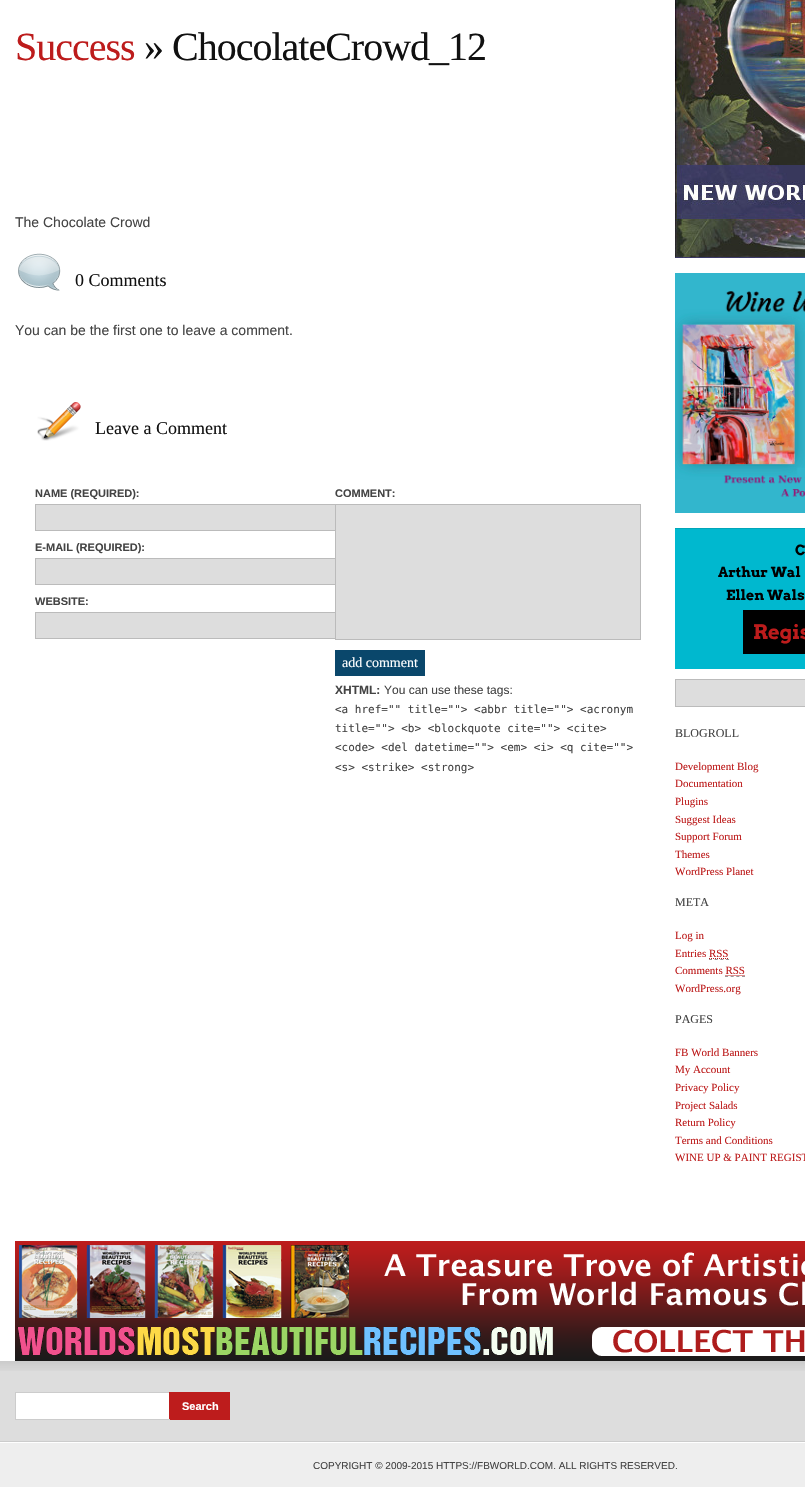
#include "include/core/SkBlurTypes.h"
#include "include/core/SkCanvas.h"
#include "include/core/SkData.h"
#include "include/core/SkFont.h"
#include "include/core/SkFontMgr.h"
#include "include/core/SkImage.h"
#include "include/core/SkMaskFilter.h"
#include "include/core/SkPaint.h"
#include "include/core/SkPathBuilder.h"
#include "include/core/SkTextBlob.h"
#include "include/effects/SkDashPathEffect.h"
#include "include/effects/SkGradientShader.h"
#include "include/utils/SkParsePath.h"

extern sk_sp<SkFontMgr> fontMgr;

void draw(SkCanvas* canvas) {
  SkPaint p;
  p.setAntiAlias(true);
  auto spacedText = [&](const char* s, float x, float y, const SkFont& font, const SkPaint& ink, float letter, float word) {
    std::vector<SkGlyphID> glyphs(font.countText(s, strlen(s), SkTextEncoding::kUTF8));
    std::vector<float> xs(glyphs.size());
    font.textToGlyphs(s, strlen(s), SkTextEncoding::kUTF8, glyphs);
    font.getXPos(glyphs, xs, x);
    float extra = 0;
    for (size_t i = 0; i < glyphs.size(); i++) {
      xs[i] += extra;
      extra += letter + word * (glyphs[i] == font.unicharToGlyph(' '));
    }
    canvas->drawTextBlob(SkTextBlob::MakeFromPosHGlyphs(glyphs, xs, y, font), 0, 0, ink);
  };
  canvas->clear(SK_ColorWHITE);
  canvas->drawImageRect(SkImages::DeferredFromEncodedData(SkData::MakeFromFileName("images/1.png")), SkRect::MakeLTRB(18, 253, 61, 291), SkSamplingOptions());
  canvas->drawImageRect(SkImages::DeferredFromEncodedData(SkData::MakeFromFileName("images/2.png")), SkRect::MakeLTRB(37, 402, 81, 441), SkSamplingOptions());
  p.setColor(SkColorSetRGB(221, 221, 221));
  canvas->drawRect(SkRect::MakeLTRB(36, 505, 335, 530), p);
  p.setStyle(SkPaint::kStroke_Style);
  p.setStrokeWidth(1);
  p.setColor(SkColorSetRGB(187, 187, 187));
  canvas->drawRect(SkRect::MakeLTRB(35.5f, 504.5f, 341.5f, 530.5f), p);
  p.setStyle(SkPaint::kFill_Style);
  p.setColor(SkColorSetRGB(221, 221, 221));
  canvas->drawRect(SkRect::MakeLTRB(36, 559, 335, 584), p);
  p.setStyle(SkPaint::kStroke_Style);
  p.setColor(SkColorSetRGB(187, 187, 187));
  canvas->drawRect(SkRect::MakeLTRB(35.5f, 558.5f, 341.5f, 584.5f), p);
  p.setStyle(SkPaint::kFill_Style);
  p.setColor(SkColorSetRGB(221, 221, 221));
  canvas->drawRect(SkRect::MakeLTRB(36, 613, 335, 638), p);
  p.setStyle(SkPaint::kStroke_Style);
  p.setColor(SkColorSetRGB(187, 187, 187));
  canvas->drawRect(SkRect::MakeLTRB(35.5f, 612.5f, 341.5f, 638.5f), p);
  p.setStyle(SkPaint::kFill_Style);
  p.setColor(SkColorSetRGB(221, 221, 221));
  canvas->drawRect(SkRect::MakeLTRB(335.5f, 504.5f, 640.5f, 639.5f), p);
  p.setStyle(SkPaint::kStroke_Style);
  p.setColor(SkColorSetRGB(187, 187, 187));
  canvas->drawRect(SkRect::MakeLTRB(335.5f, 504.5f, 640.5f, 639.5f), p);
  p.setStyle(SkPaint::kFill_Style);
  p.setColor(SkColorSetRGB(10, 71, 107));
  canvas->drawRect(SkRect::MakeLTRB(335, 650, 425, 676), p);
  canvas->drawImageRect(SkImages::DeferredFromEncodedData(SkData::MakeFromFileName("images/3.png")), SkRect::MakeLTRB(675, 0, 805, 258), SkSamplingOptions());
  canvas->drawImageRect(SkImages::DeferredFromEncodedData(SkData::MakeFromFileName("images/4.png")), SkRect::MakeLTRB(675, 273, 805, 513), SkSamplingOptions());
  p.setColor(SkColorSetRGB(0, 184, 207));
  canvas->drawRect(SkRect::MakeLTRB(675, 529, 805, 669), p);
  p.setColor(SkColorSetRGB(0, 166, 185));
  canvas->drawRect(SkRect::MakeLTRB(675, 528, 805, 529), p);
  p.setColor(SK_ColorBLACK);
  canvas->drawRect(SkRect::MakeLTRB(743, 610, 805, 654), p);
  p.setColor(SkColorSetRGB(221, 221, 221));
  canvas->drawRect(SkRect::MakeLTRB(675.5f, 679.5f, 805.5f, 706.5f), p);
  p.setStyle(SkPaint::kStroke_Style);
  p.setColor(SkColorSetRGB(187, 187, 187));
  canvas->drawRect(SkRect::MakeLTRB(675.5f, 679.5f, 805.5f, 706.5f), p);
  p.setColor(SkColorSetRGB(153, 153, 153));
  p.setPathEffect(SkDashPathEffect::Make({{3, 2.67f}}, 0));
  canvas->drawPath(SkPathBuilder().moveTo(709, 959.5f).lineTo(729, 959.5f).detach(), p);
  p.setPathEffect(nullptr);
  p.setColor(SkColorSetRGB(189, 28, 28));
  p.setPathEffect(SkDashPathEffect::Make({{1, 1}}, 0));
  canvas->drawPath(SkPathBuilder().moveTo(709, 958.5f).lineTo(728.5f, 958.5f).detach(), p);
  p.setPathEffect(nullptr);
  p.setColor(SkColorSetRGB(153, 153, 153));
  p.setPathEffect(SkDashPathEffect::Make({{3, 2.67f}}, 0));
  canvas->drawPath(SkPathBuilder().moveTo(725, 976.5f).lineTo(745, 976.5f).detach(), p);
  p.setPathEffect(nullptr);
  p.setColor(SkColorSetRGB(189, 28, 28));
  p.setPathEffect(SkDashPathEffect::Make({{1, 1}}, 0));
  canvas->drawPath(SkPathBuilder().moveTo(725.5f, 975.5f).lineTo(745, 975.5f).detach(), p);
  p.setPathEffect(nullptr);
  canvas->drawImageRect(SkImages::DeferredFromEncodedData(SkData::MakeFromFileName("images/5.png")), SkRect::MakeLTRB(15, 1241, 805, 1361), SkSamplingOptions());
  p.setStyle(SkPaint::kFill_Style);
  p.setColor(SkColorSetRGB(221, 221, 221));
  canvas->drawRect(SkRect::MakeLTRB(0, 1371, 805, 1441), p);
  canvas->drawImageRect(SkImages::DeferredFromEncodedData(SkData::MakeFromFileName("images/6.png")), SkRect::MakeLTRB(0, 1361, 805, 1371), SkSamplingOptions());
  p.setColor(SkColorSetRGB(204, 204, 204));
  canvas->drawRect(SkRect::MakeLTRB(0, 1441, 805, 1442), p);
  p.setColor(SK_ColorWHITE);
  canvas->drawRect(SkRect::MakeLTRB(16, 1393, 169, 1419), p);
  p.setColor(SkColorSetRGB(204, 204, 204));
  canvas->drawRect(SkRect::MakeLTRB(15, 1392, 170, 1393), p);
  p.setColor(SkColorSetRGB(189, 28, 28));
  canvas->drawRect(SkRect::MakeLTRB(169, 1392, 230, 1420), p);
  p.setColor(SkColorSetRGB(204, 204, 204));
  canvas->drawRect(SkRect::MakeLTRB(15, 1419, 170, 1420), p);
  canvas->drawRect(SkRect::MakeLTRB(15, 1392, 16, 1420), p);
  p.setColor(SkColorSetRGB(238, 238, 238));
  canvas->drawRect(SkRect::MakeLTRB(0, 1443, 805, 1487), p);
  SkFont font1(fontMgr->matchFamilyStyle("Liberation Serif", SkFontStyle::Normal()), 40);
  font1.setSubpixel(true);
  p.setColor(SkColorSetRGB(189, 28, 28));
  spacedText("Success", 15, 60, font1, p, -1, 0);
  p.setColor(SkColorSetRGB(17, 17, 17));
  spacedText("» ChocolateCrowd_12", 144, 60, font1, p, -1, 0);
  SkFont font2(fontMgr->matchFamilyStyle("Liberation Sans", SkFontStyle::Normal()), 14);
  font2.setSubpixel(true);
  p.setColor(SkColorSetRGB(68, 68, 68));
  canvas->drawString("The Chocolate Crowd", 15, 227, font2, p);
  SkFont font3(fontMgr->matchFamilyStyle("Liberation Serif", SkFontStyle::Normal()), 18);
  font3.setSubpixel(true);
  p.setColor(SkColorSetRGB(17, 17, 17));
  canvas->drawString("0 Comments", 75, 286, font3, p);
  p.setColor(SkColorSetRGB(68, 68, 68));
  canvas->drawString("You can be the first one to leave a comment.", 15, 335, font2, p);
  p.setColor(SkColorSetRGB(17, 17, 17));
  canvas->drawString("Leave a Comment", 95, 434, font3, p);
  SkFont font4(fontMgr->matchFamilyStyle("Liberation Sans", SkFontStyle::Bold()), 11);
  font4.setSubpixel(true);
  p.setColor(SkColorSetRGB(68, 68, 68));
  canvas->drawString("NAME (REQUIRED):", 35, 497, font4, p);
  canvas->drawString("E-MAIL (REQUIRED):", 35, 551, font4, p);
  canvas->drawString("WEBSITE:", 35, 605, font4, p);
  canvas->drawString("COMMENT:", 335, 497, font4, p);
  SkFont font5(fontMgr->matchFamilyStyle("Liberation Serif", SkFontStyle::Normal()), 14);
  font5.setSubpixel(true);
  p.setColor(SK_ColorWHITE);
  canvas->drawString("add comment", 342, 667, font5, p);
  SkFont font6(fontMgr->matchFamilyStyle("Liberation Sans", SkFontStyle::Bold()), 12);
  font6.setSubpixel(true);
  p.setColor(SkColorSetRGB(68, 68, 68));
  canvas->drawString("XHTML:", 335, 694, font6, p);
  SkFont font7(fontMgr->matchFamilyStyle("Liberation Sans", SkFontStyle::Normal()), 12);
  font7.setSubpixel(true);
  canvas->drawString("You can use these tags:", 384, 694, font7, p);
  SkFont font8(fontMgr->matchFamilyStyle("DejaVu Sans Mono", SkFontStyle::Normal()), 11);
  font8.setSubpixel(true);
  canvas->drawString("<a href=\"\" title=\"\"> <abbr title=\"\"> <acronym", 335, 713, font8, p);
  canvas->drawString("title=\"\"> <b> <blockquote cite=\"\"> <cite>", 335, 732, font8, p);
  canvas->drawString("<code> <del datetime=\"\"> <em> <i> <q cite=\"\">", 335, 751, font8, p);
  canvas->drawString("<s> <strike> <strong>", 335, 771, font8, p);
  SkFont font9(fontMgr->matchFamilyStyle("Arvo", SkFontStyle::Bold()), 14);
  font9.setSubpixel(true);
  p.setColor(SK_ColorBLACK);
  canvas->drawString("C", 795, 555, font9, p);
  canvas->drawString("Arthur Wal", 718, 577, font9, p);
  canvas->drawString("Ellen Wals", 726, 600, font9, p);
  SkFont font10(fontMgr->matchFamilyStyle("Arvo", SkFontStyle::Bold()), 20);
  font10.setSubpixel(true);
  p.setColor(SkColorSetRGB(189, 28, 28));
  canvas->drawString("Regis", 753, 639, font10, p);
  SkFont font11(fontMgr->matchFamilyStyle("Liberation Serif", SkFontStyle::Normal()), 12);
  font11.setSubpixel(true);
  p.setColor(SkColorSetRGB(68, 68, 68));
  canvas->drawString("BLOGROLL", 675, 737, font11, p);
  SkFont font12(fontMgr->matchFamilyStyle("Liberation Serif", SkFontStyle::Normal()), 11);
  font12.setSubpixel(true);
  p.setColor(SkColorSetRGB(189, 28, 28));
  canvas->drawString("Development Blog", 675, 770, font12, p);
  canvas->drawString("Documentation", 675, 787, font12, p);
  canvas->drawString("Plugins", 675, 805, font12, p);
  canvas->drawString("Suggest Ideas", 675, 823, font12, p);
  canvas->drawString("Support Forum", 675, 840, font12, p);
  canvas->drawString("Themes", 675, 858, font12, p);
  canvas->drawString("WordPress Planet", 675, 875, font12, p);
  p.setColor(SkColorSetRGB(68, 68, 68));
  canvas->drawString("META", 675, 906, font11, p);
  p.setColor(SkColorSetRGB(189, 28, 28));
  canvas->drawString("Log in", 675, 939, font12, p);
  canvas->drawString("Entries RSS", 675, 957, font12, p);
  canvas->drawString("Comments RSS", 675, 974, font12, p);
  canvas->drawString("WordPress.org", 675, 992, font12, p);
  p.setColor(SkColorSetRGB(68, 68, 68));
  canvas->drawString("PAGES", 675, 1023, font11, p);
  p.setColor(SkColorSetRGB(189, 28, 28));
  canvas->drawString("FB World Banners", 675, 1056, font12, p);
  canvas->drawString("My Account", 675, 1073, font12, p);
  canvas->drawString("Privacy Policy", 675, 1091, font12, p);
  canvas->drawString("Project Salads", 675, 1109, font12, p);
  canvas->drawString("Return Policy", 675, 1126, font12, p);
  canvas->drawString("Terms and Conditions", 675, 1144, font12, p);
  canvas->drawString("WINE UP & PAINT REGIST", 675, 1161, font12, p);
  p.setColor(SK_ColorWHITE);
  canvas->drawString("Search", 182, 1410, font4, p);
  SkFont font13(fontMgr->matchFamilyStyle("Liberation Sans", SkFontStyle::Normal()), 10);
  font13.setSubpixel(true);
  p.setColor(SkColorSetRGB(68, 68, 68));
  canvas->drawString("COPYRIGHT © 2009-2015 HTTPS://FBWORLD.COM. ALL RIGHTS RESERVED.", 313, 1469, font13, p);
}
